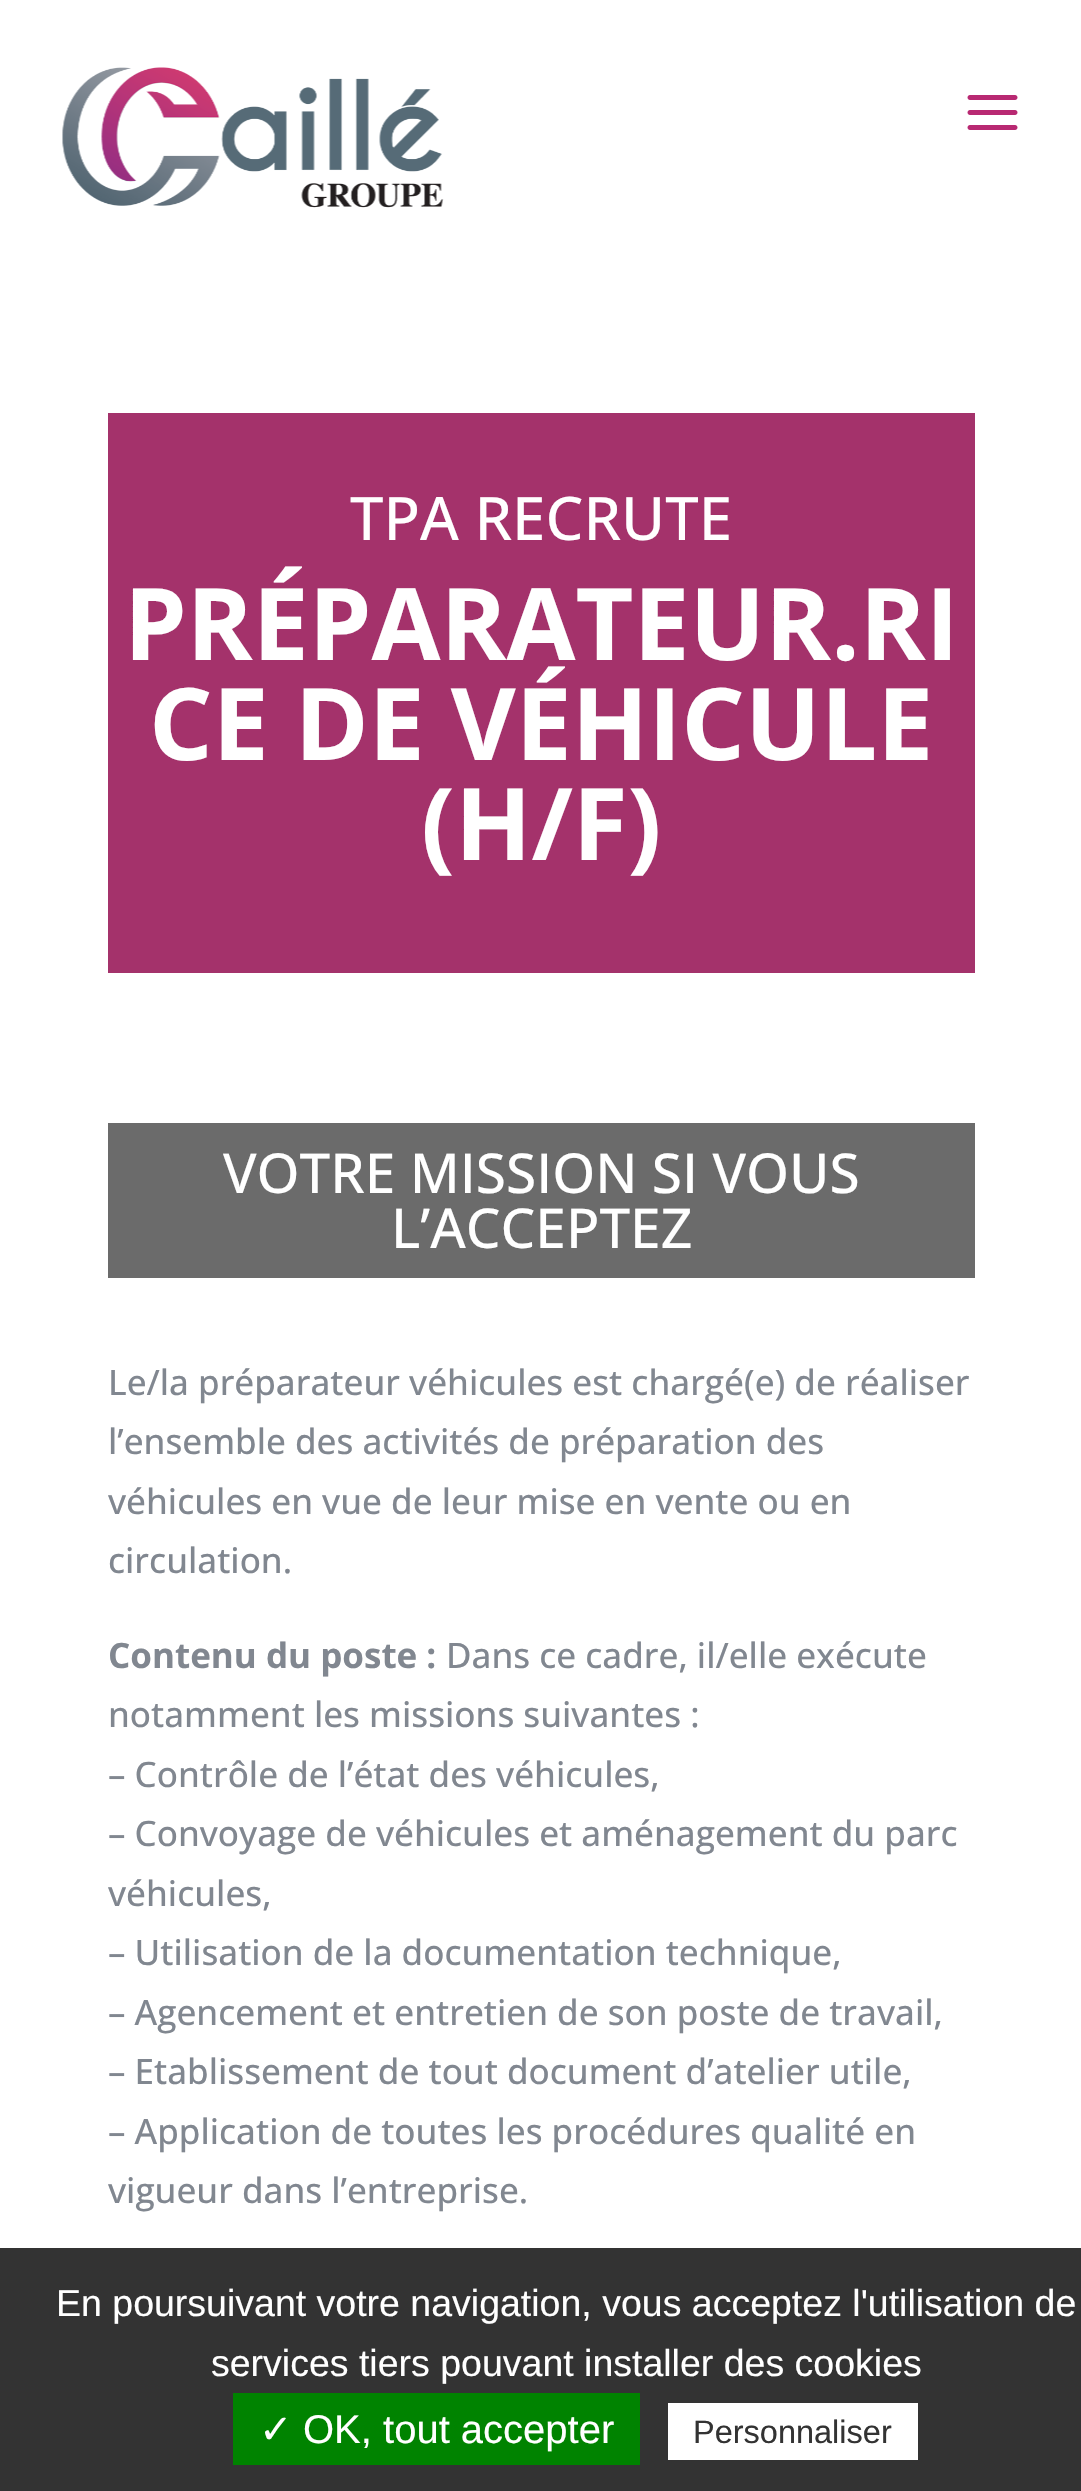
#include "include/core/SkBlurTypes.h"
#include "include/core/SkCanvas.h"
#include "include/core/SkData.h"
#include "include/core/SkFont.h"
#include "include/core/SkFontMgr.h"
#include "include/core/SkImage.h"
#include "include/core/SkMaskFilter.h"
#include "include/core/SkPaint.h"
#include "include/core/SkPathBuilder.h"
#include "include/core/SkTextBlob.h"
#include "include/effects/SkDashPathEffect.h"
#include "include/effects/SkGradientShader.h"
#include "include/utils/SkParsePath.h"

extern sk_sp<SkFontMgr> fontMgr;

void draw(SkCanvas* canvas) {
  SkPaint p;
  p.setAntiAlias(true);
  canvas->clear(SK_ColorWHITE);
  canvas->drawImageRect(SkImages::DeferredFromEncodedData(SkData::MakeFromFileName("images/1.png")), SkRect::MakeLTRB(62, 67, 444, 208), SkSamplingOptions());
  canvas->drawImageRect(SkImages::DeferredFromEncodedData(SkData::MakeFromFileName("images/2.png")), SkRect::MakeLTRB(967, 95, 1018, 130), SkSamplingOptions());
  p.setColor(SkColorSetRGB(164, 50, 107));
  canvas->drawRect(SkRect::MakeLTRB(108, 413, 975, 973), p);
  p.setColor(SkColorSetRGB(107, 107, 107));
  canvas->drawRect(SkRect::MakeLTRB(108, 1123, 975, 1278), p);
  p.setColor(SkColorSetRGB(51, 51, 51));
  canvas->drawRect(SkRect::MakeLTRB(0, 2248, 1081, 2491), p);
  p.setColor(SkColorSetRGB(0, 131, 0));
  canvas->drawRect(SkRect::MakeLTRB(233, 2393, 640, 2465), p);
  p.setColor(SK_ColorWHITE);
  canvas->drawRect(SkRect::MakeLTRB(668, 2403, 918, 2460), p);
  SkFont font1(fontMgr->matchFamilyStyle("Open Sans", SkFontStyle(500, SkFontStyle::kNormal_Width, SkFontStyle::kUpright_Slant)), 60);
  font1.setSubpixel(true);
  canvas->drawString("TPA RECRUTE", 350, 540, font1, p);
  SkFont font2(fontMgr->matchFamilyStyle("Open Sans", SkFontStyle::Bold()), 100);
  font2.setSubpixel(true);
  canvas->drawString("PRÉPARATEUR.RI", 124, 660, font2, p);
  canvas->drawString("CE DE VÉHICULE", 149, 760, font2, p);
  canvas->drawString("(H/F)", 421, 860, font2, p);
  SkFont font3(fontMgr->matchFamilyStyle("Open Sans", SkFontStyle(500, SkFontStyle::kNormal_Width, SkFontStyle::kUpright_Slant)), 55);
  font3.setSubpixel(true);
  canvas->drawString("VOTRE MISSION SI VOUS", 223, 1193, font3, p);
  canvas->drawString("L’ACCEPTEZ", 391, 1248, font3, p);
  SkFont font4(fontMgr->matchFamilyStyle("Open Sans", SkFontStyle(500, SkFontStyle::kNormal_Width, SkFontStyle::kUpright_Slant)), 35);
  font4.setSubpixel(true);
  p.setColor(SkColorSetRGB(129, 135, 144));
  canvas->drawString("Le/la préparateur véhicules est chargé(e) de réaliser", 108, 1395, font4, p);
  canvas->drawString("l’ensemble des activités de préparation des", 108, 1454, font4, p);
  canvas->drawString("véhicules en vue de leur mise en vente ou en", 108, 1514, font4, p);
  canvas->drawString("circulation.", 108, 1573, font4, p);
  SkFont font5(fontMgr->matchFamilyStyle("Open Sans", SkFontStyle::Bold()), 35);
  font5.setSubpixel(true);
  canvas->drawString("Contenu du poste :", 108, 1668, font5, p);
  canvas->drawString("Dans ce cadre, il/elle exécute", 446, 1668, font4, p);
  canvas->drawString("notamment les missions suivantes :", 108, 1727, font4, p);
  canvas->drawString("– Contrôle de l’état des véhicules,", 108, 1787, font4, p);
  canvas->drawString("– Convoyage de véhicules et aménagement du parc", 108, 1846, font4, p);
  canvas->drawString("véhicules,", 108, 1906, font4, p);
  canvas->drawString("– Utilisation de la documentation technique,", 108, 1965, font4, p);
  canvas->drawString("– Agencement et entretien de son poste de travail,", 108, 2025, font4, p);
  canvas->drawString("– Etablissement de tout document d’atelier utile,", 108, 2084, font4, p);
  canvas->drawString("– Application de toutes les procédures qualité en", 108, 2144, font4, p);
  canvas->drawString("vigueur dans l’entreprise.", 108, 2203, font4, p);
  SkFont font6(fontMgr->matchFamilyStyle("Liberation Sans", SkFontStyle::Normal()), 37.5f);
  font6.setSubpixel(true);
  p.setColor(SK_ColorWHITE);
  canvas->drawString("En poursuivant votre navigation, vous acceptez l'utilisation de", 56, 2316, font6, p);
  canvas->drawString("services tiers pouvant installer des cookies", 211, 2376, font6, p);
  SkFont font7(fontMgr->matchFamilyStyle("DejaVu Sans", SkFontStyle::Normal()), 40);
  font7.setSubpixel(true);
  canvas->drawString("✓", 259, 2443, font7, p);
  SkFont font8(fontMgr->matchFamilyStyle("Liberation Sans", SkFontStyle::Normal()), 40);
  font8.setSubpixel(true);
  canvas->drawString("OK, tout accepter", 303, 2443, font8, p);
  SkFont font9(fontMgr->matchFamilyStyle("Liberation Sans", SkFontStyle::Normal()), 32.5f);
  font9.setSubpixel(true);
  p.setColor(SkColorSetRGB(51, 51, 51));
  canvas->drawString("Personnaliser", 693, 2443, font9, p);
}
